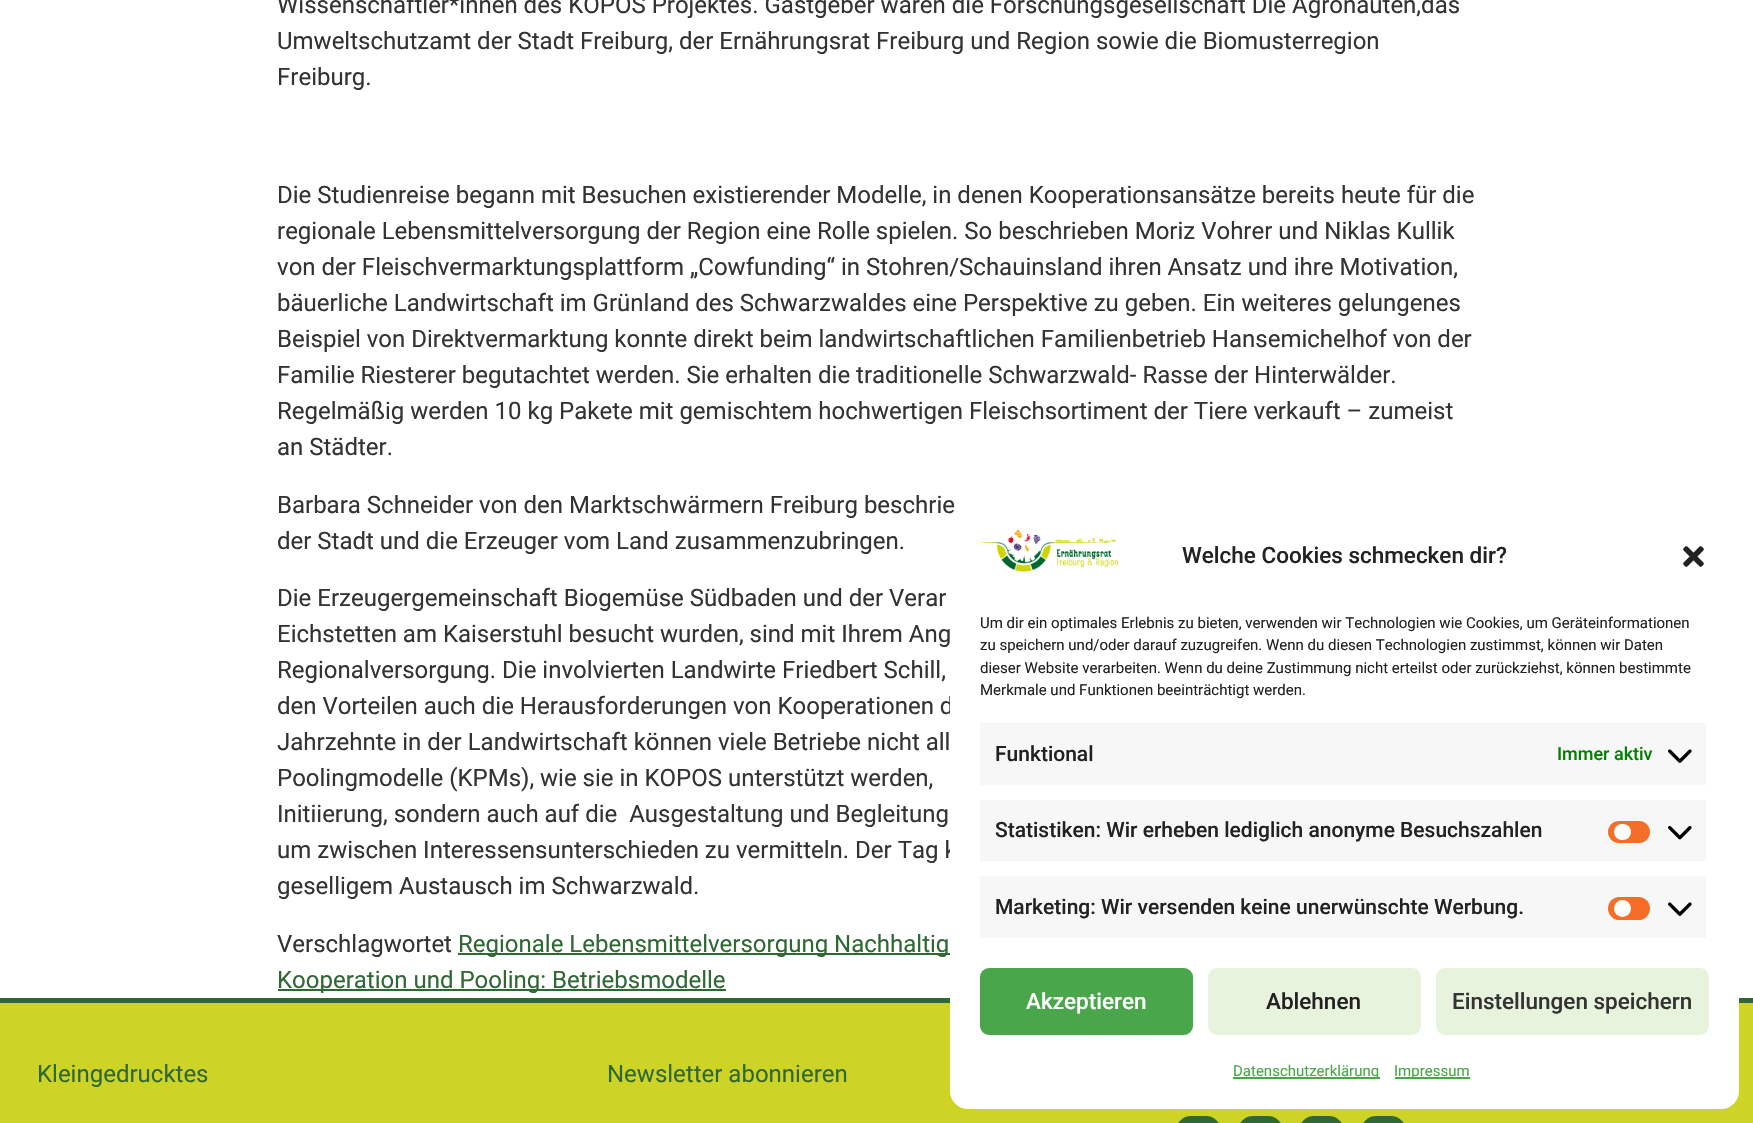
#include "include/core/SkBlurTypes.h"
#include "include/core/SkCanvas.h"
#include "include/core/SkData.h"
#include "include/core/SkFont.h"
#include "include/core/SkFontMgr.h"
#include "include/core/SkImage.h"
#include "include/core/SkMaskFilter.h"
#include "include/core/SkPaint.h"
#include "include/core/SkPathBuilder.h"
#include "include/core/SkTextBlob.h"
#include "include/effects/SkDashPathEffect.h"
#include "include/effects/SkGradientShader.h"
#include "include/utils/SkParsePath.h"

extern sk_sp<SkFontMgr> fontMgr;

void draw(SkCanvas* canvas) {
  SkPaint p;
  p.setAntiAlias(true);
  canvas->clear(SK_ColorWHITE);
  p.setColor(SkColorSetRGB(48, 104, 52));
  canvas->drawRect(SkRect::MakeLTRB(458, 953, 950, 955), p);
  canvas->drawRect(SkRect::MakeLTRB(278, 989, 726, 991), p);
  p.setColor(SkColorSetRGB(205, 212, 37));
  canvas->drawRect(SkRect::MakeLTRB(0, 1003, 1753, 1123), p);
  p.setColor(SkColorSetRGB(48, 104, 52));
  canvas->drawRect(SkRect::MakeLTRB(0, 998, 1753, 1003), p);
  canvas->drawRoundRect(SkRect::MakeLTRB(1176, 1116, 1221, 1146), 22.5f, 22.5f, p);
  canvas->drawRoundRect(SkRect::MakeLTRB(1238, 1116, 1283, 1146), 22.5f, 22.5f, p);
  canvas->drawRoundRect(SkRect::MakeLTRB(1299, 1116, 1344, 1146), 22.5f, 22.5f, p);
  canvas->drawRoundRect(SkRect::MakeLTRB(1361, 1116, 1406, 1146), 22.5f, 22.5f, p);
  SkFont font1(fontMgr->matchFamilyStyle("Roboto", SkFontStyle::Normal()), 24);
  font1.setSubpixel(true);
  p.setColor(SkColorSetRGB(51, 51, 51));
  canvas->drawString("Wissenschaftler*innen des KOPOS Projektes. Gastgeber waren die Forschungsgesellschaft Die Agronauten,das", 277, 13, font1, p);
  canvas->drawString("Umweltschutzamt der Stadt Freiburg, der Ernährungsrat Freiburg und Region sowie die Biomusterregion", 277, 49, font1, p);
  canvas->drawString("Freiburg.", 277, 85, font1, p);
  canvas->drawString("Die Studienreise begann mit Besuchen existierender Modelle, in denen Kooperationsansätze bereits heute für die", 277, 203, font1, p);
  canvas->drawString("regionale Lebensmittelversorgung der Region eine Rolle spielen. So beschrieben Moriz Vohrer und Niklas Kullik", 277, 239, font1, p);
  canvas->drawString("von der Fleischvermarktungsplattform „Cowfunding“ in Stohren/Schauinsland ihren Ansatz und ihre Motivation,", 277, 275, font1, p);
  canvas->drawString("bäuerliche Landwirtschaft im Grünland des Schwarzwaldes eine Perspektive zu geben. Ein weiteres gelungenes", 277, 311, font1, p);
  canvas->drawString("Beispiel von Direktvermarktung konnte direkt beim landwirtschaftlichen Familienbetrieb Hansemichelhof von der", 277, 347, font1, p);
  canvas->drawString("Familie Riesterer begutachtet werden. Sie erhalten die traditionelle Schwarzwald- Rasse der Hinterwälder.", 277, 383, font1, p);
  canvas->drawString("Regelmäßig werden 10 kg Pakete mit gemischtem hochwertigen Fleischsortiment der Tiere verkauft – zumeist", 277, 419, font1, p);
  canvas->drawString("an Städter.", 277, 455, font1, p);
  canvas->drawString("Barbara Schneider von den Marktschwärmern Freiburg beschrie", 277, 513, font1, p);
  canvas->drawString("der Stadt und die Erzeuger vom Land zusammenzubringen.", 277, 549, font1, p);
  canvas->drawString("Die Erzeugergemeinschaft Biogemüse Südbaden und der Verar", 277, 606, font1, p);
  canvas->drawString("Eichstetten am Kaiserstuhl besucht wurden, sind mit Ihrem Ang", 277, 642, font1, p);
  canvas->drawString("Regionalversorgung. Die involvierten Landwirte Friedbert Schill,", 277, 678, font1, p);
  canvas->drawString("den Vorteilen auch die Herausforderungen von Kooperationen d", 277, 714, font1, p);
  canvas->drawString("Jahrzehnte in der Landwirtschaft können viele Betriebe nicht all", 277, 750, font1, p);
  canvas->drawString("Poolingmodelle (KPMs), wie sie in KOPOS unterstützt werden,", 277, 786, font1, p);
  canvas->drawString("Initiierung, sondern auch auf die  Ausgestaltung und Begleitung", 277, 822, font1, p);
  canvas->drawString("um zwischen Interessensunterschieden zu vermitteln. Der Tag k", 277, 858, font1, p);
  canvas->drawString("geselligem Austausch im Schwarzwald.", 277, 894, font1, p);
  canvas->drawString("Verschlagwortet", 277, 952, font1, p);
  p.setColor(SkColorSetRGB(48, 104, 52));
  canvas->drawString("Regionale Lebensmittelversorgung Nachhaltig", 458, 952, font1, p);
  canvas->drawString("Kooperation und Pooling: Betriebsmodelle", 277, 988, font1, p);
  canvas->drawString("Kleingedrucktes", 37, 1082, font1, p);
  canvas->drawString("Newsletter abonnieren", 607, 1082, font1, p);
  p.setColor(SK_ColorWHITE);
  canvas->drawRoundRect(SkRect::MakeLTRB(950, 507, 1739, 1109), 18, 18, p);
  canvas->drawImageRect(SkImages::DeferredFromEncodedData(SkData::MakeFromFileName("images/1.png")), SkRect::MakeLTRB(979, 529, 1119, 572), SkSamplingOptions());
  SkFont font2(fontMgr->matchFamilyStyle("Roboto", SkFontStyle(500, SkFontStyle::kNormal_Width, SkFontStyle::kUpright_Slant)), 22.5f);
  font2.setSubpixel(true);
  p.setColor(SkColorSetRGB(34, 34, 34));
  canvas->drawString("Welche Cookies schmecken dir?", 1182, 563, font2, p);
  canvas->drawImageRect(SkImages::DeferredFromEncodedData(SkData::MakeFromFileName("images/2.png")), SkRect::MakeLTRB(1683, 546, 1704, 567), SkSamplingOptions());
  SkFont font3(fontMgr->matchFamilyStyle("Roboto", SkFontStyle::Normal()), 15);
  font3.setSubpixel(true);
  canvas->drawString("Um dir ein optimales Erlebnis zu bieten, verwenden wir Technologien wie Cookies, um Geräteinformationen", 980, 628, font3, p);
  canvas->drawString("zu speichern und/oder darauf zuzugreifen. Wenn du diesen Technologien zustimmst, können wir Daten", 980, 650, font3, p);
  canvas->drawString("dieser Website verarbeiten. Wenn du deine Zustimmung nicht erteilst oder zurückziehst, können bestimmte", 980, 673, font3, p);
  canvas->drawString("Merkmale und Funktionen beeinträchtigt werden.", 980, 695, font3, p);
  p.setColor(SkColorSetRGB(247, 247, 247));
  canvas->drawRect(SkRect::MakeLTRB(980, 723, 1706, 785), p);
  SkFont font4(fontMgr->matchFamilyStyle("Roboto", SkFontStyle(500, SkFontStyle::kNormal_Width, SkFontStyle::kUpright_Slant)), 21);
  font4.setSubpixel(true);
  p.setColor(SkColorSetRGB(34, 34, 34));
  canvas->drawString("Funktional", 995, 761, font4, p);
  SkFont font5(fontMgr->matchFamilyStyle("Roboto", SkFontStyle(500, SkFontStyle::kNormal_Width, SkFontStyle::kUpright_Slant)), 18);
  font5.setSubpixel(true);
  p.setColor(SkColorSetRGB(0, 128, 0));
  canvas->drawString("Immer aktiv", 1557, 760, font5, p);
  canvas->drawImageRect(SkImages::DeferredFromEncodedData(SkData::MakeFromFileName("images/3.png")), SkRect::MakeLTRB(1668, 749, 1692, 763), SkSamplingOptions());
  p.setColor(SkColorSetRGB(247, 247, 247));
  canvas->drawRect(SkRect::MakeLTRB(980, 800, 1706, 861), p);
  p.setColor(SkColorSetRGB(34, 34, 34));
  canvas->drawString("Statistiken: Wir erheben lediglich anonyme Besuchszahlen", 995, 837, font4, p);
  p.setColor(SkColorSetRGB(245, 110, 40));
  canvas->drawRoundRect(SkRect::MakeLTRB(1608, 821, 1650, 843), 11, 11, p);
  p.setColor(SK_ColorWHITE);
  canvas->drawRoundRect(SkRect::MakeLTRB(1614, 824, 1631, 840), 8, 8, p);
  canvas->drawImageRect(SkImages::DeferredFromEncodedData(SkData::MakeFromFileName("images/4.png")), SkRect::MakeLTRB(1668, 826, 1692, 840), SkSamplingOptions());
  p.setColor(SkColorSetRGB(247, 247, 247));
  canvas->drawRect(SkRect::MakeLTRB(980, 876, 1706, 938), p);
  p.setColor(SkColorSetRGB(34, 34, 34));
  canvas->drawString("Marketing: Wir versenden keine unerwünschte Werbung.", 995, 914, font4, p);
  p.setColor(SkColorSetRGB(245, 110, 40));
  canvas->drawRoundRect(SkRect::MakeLTRB(1608, 897, 1650, 920), 11.5f, 11.5f, p);
  p.setColor(SK_ColorWHITE);
  canvas->drawCircle(1622.5f, 908.5f, 8.5f, p);
  canvas->drawImageRect(SkImages::DeferredFromEncodedData(SkData::MakeFromFileName("images/3.png")), SkRect::MakeLTRB(1668, 902, 1692, 916), SkSamplingOptions());
  p.setColor(SkColorSetRGB(74, 166, 74));
  canvas->drawRoundRect(SkRect::MakeLTRB(981, 969, 1192, 1034), 8, 8, p);
  p.setStyle(SkPaint::kStroke_Style);
  p.setStrokeWidth(2);
  canvas->drawRoundRect(SkRect::MakeLTRB(981, 969, 1192, 1034), 8, 8, p);
  p.setStyle(SkPaint::kFill_Style);
  p.setColor(SK_ColorWHITE);
  canvas->drawString("Akzeptieren", 1026, 1009, font2, p);
  p.setColor(SkColorSetRGB(231, 243, 221));
  canvas->drawRoundRect(SkRect::MakeLTRB(1209, 969, 1420, 1034), 8, 8, p);
  p.setStyle(SkPaint::kStroke_Style);
  canvas->drawRoundRect(SkRect::MakeLTRB(1209, 969, 1420, 1034), 8, 8, p);
  p.setStyle(SkPaint::kFill_Style);
  p.setColor(SkColorSetRGB(34, 34, 34));
  canvas->drawString("Ablehnen", 1266, 1009, font2, p);
  p.setColor(SkColorSetRGB(231, 243, 221));
  canvas->drawRoundRect(SkRect::MakeLTRB(1437, 969, 1708, 1034), 8, 8, p);
  p.setStyle(SkPaint::kStroke_Style);
  canvas->drawRoundRect(SkRect::MakeLTRB(1437, 969, 1708, 1034), 8, 8, p);
  p.setStyle(SkPaint::kFill_Style);
  p.setColor(SkColorSetRGB(51, 51, 51));
  canvas->drawString("Einstellungen speichern", 1452, 1009, font2, p);
  p.setColor(SkColorSetRGB(74, 166, 74));
  canvas->drawRect(SkRect::MakeLTRB(1233, 1077, 1380, 1079), p);
  canvas->drawString("Datenschutzerklärung", 1233, 1076, font3, p);
  canvas->drawRect(SkRect::MakeLTRB(1395, 1077, 1470, 1079), p);
  canvas->drawString("Impressum", 1394, 1076, font3, p);
}
